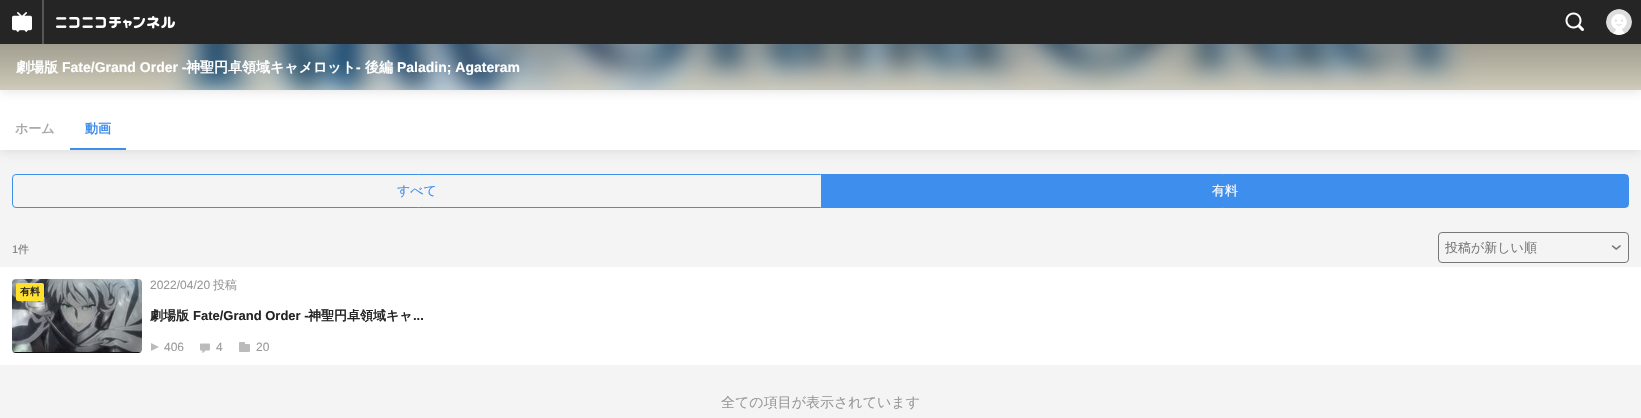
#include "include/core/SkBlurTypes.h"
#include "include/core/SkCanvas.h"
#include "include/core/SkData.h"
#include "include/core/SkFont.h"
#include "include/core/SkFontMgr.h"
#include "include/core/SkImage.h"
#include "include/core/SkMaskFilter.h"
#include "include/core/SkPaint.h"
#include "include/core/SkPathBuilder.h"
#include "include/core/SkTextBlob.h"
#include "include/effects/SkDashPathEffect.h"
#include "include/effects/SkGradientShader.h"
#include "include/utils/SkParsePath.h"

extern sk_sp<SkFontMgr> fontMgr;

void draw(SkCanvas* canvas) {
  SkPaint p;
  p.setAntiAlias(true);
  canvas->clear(SkColorSetRGB(244, 244, 244));
  p.setColor(SkColorSetARGB(51, 125, 125, 125));
  p.setMaskFilter(SkMaskFilter::MakeBlur(kNormal_SkBlurStyle, 5));
  canvas->drawRect(SkRect::MakeLTRB(0, 92, 1641, 152), p);
  p.setMaskFilter(nullptr);
  p.setColor(SK_ColorWHITE);
  canvas->drawRect(SkRect::MakeLTRB(0, 90, 1641, 150), p);
  p.setColor(SkColorSetARGB(51, 125, 125, 125));
  p.setMaskFilter(SkMaskFilter::MakeBlur(kNormal_SkBlurStyle, 5));
  canvas->drawRect(SkRect::MakeLTRB(0, 46, 1641, 92), p);
  p.setMaskFilter(nullptr);
  p.setColor(SkColorSetRGB(37, 37, 37));
  canvas->drawRect(SkRect::MakeLTRB(0, 0, 1641, 44), p);
  canvas->drawImageRect(SkImages::DeferredFromEncodedData(SkData::MakeFromFileName("images/1.png")), SkRect::MakeLTRB(12, 12, 32, 32), SkSamplingOptions());
  p.setColor(SkColorSetRGB(85, 85, 85));
  canvas->drawRect(SkRect::MakeLTRB(42, 0, 44, 44), p);
  canvas->drawImageRect(SkImages::DeferredFromEncodedData(SkData::MakeFromFileName("images/2.png")), SkRect::MakeLTRB(56, 16, 175, 29), SkSamplingOptions());
  canvas->drawImageRect(SkImages::DeferredFromEncodedData(SkData::MakeFromFileName("images/3.png")), SkRect::MakeLTRB(1565, 12, 1584, 31), SkSamplingOptions());
  canvas->drawImageRect(SkImages::DeferredFromEncodedData(SkData::MakeFromFileName("images/4.png")), SkRect::MakeLTRB(1606, 9, 1632, 35), SkSamplingOptions());
  canvas->drawImageRect(SkImages::DeferredFromEncodedData(SkData::MakeFromFileName("images/5.png")), SkRect::MakeLTRB(0, 44, 1641, 90), SkSamplingOptions());
  p.setColor(SkColorSetRGB(62, 142, 237));
  canvas->drawRect(SkRect::MakeLTRB(70, 148, 126, 150), p);
  p.setStyle(SkPaint::kStroke_Style);
  p.setStrokeWidth(1);
  canvas->drawRoundRect(SkRect::MakeLTRB(12.5f, 174.5f, 1628.5f, 207.5f), 3.5f, 3.5f, p);
  p.setStyle(SkPaint::kFill_Style);
  canvas->drawRect(SkRect::MakeLTRB(821, 175, 1628, 207), p);
  canvas->drawImageRect(SkImages::DeferredFromEncodedData(SkData::MakeFromFileName("images/6.png")), SkRect::MakeLTRB(1611, 245, 1621, 250), SkSamplingOptions());
  p.setStyle(SkPaint::kStroke_Style);
  p.setColor(SkColorSetRGB(119, 119, 119));
  canvas->drawRoundRect(SkRect::MakeLTRB(1438.5f, 232.5f, 1628.5f, 262.5f), 3.5f, 3.5f, p);
  p.setStyle(SkPaint::kFill_Style);
  p.setColor(SK_ColorWHITE);
  canvas->drawRect(SkRect::MakeLTRB(0, 267, 1641, 365), p);
  canvas->drawImageRect(SkImages::DeferredFromEncodedData(SkData::MakeFromFileName("images/7.png")), SkRect::MakeLTRB(12, 279, 142, 353), SkSamplingOptions());
  p.setColor(SkColorSetRGB(255, 224, 43));
  canvas->drawRoundRect(SkRect::MakeLTRB(16, 283, 44, 301), 2, 2, p);
  p.setColor(SkColorSetRGB(187, 187, 187));
  canvas->drawPath(SkPathBuilder(SkPathFillType::kEvenOdd).moveTo(151, 343).lineTo(151, 351).lineTo(159, 347).close().detach(), p);
  canvas->drawImageRect(SkImages::DeferredFromEncodedData(SkData::MakeFromFileName("images/8.png")), SkRect::MakeLTRB(200, 343, 210, 353), SkSamplingOptions());
  canvas->drawImageRect(SkImages::DeferredFromEncodedData(SkData::MakeFromFileName("images/9.png")), SkRect::MakeLTRB(239, 342, 250, 352), SkSamplingOptions());
  SkFont font1(fontMgr->matchFamilyStyle("WenQuanYi Zen Hei", SkFontStyle::Bold()), 14);
  font1.setSubpixel(true);
  p.setColor(SK_ColorWHITE);
  canvas->drawString("劇場版", 16, 72, font1, p);
  SkFont font2(fontMgr->matchFamilyStyle("Liberation Sans", SkFontStyle::Bold()), 14);
  font2.setSubpixel(true);
  canvas->drawString("Fate/Grand Order -", 62, 72, font2, p);
  canvas->drawString("神聖円卓領域キャメロット", 186, 72, font1, p);
  canvas->drawString("-", 356, 72, font2, p);
  canvas->drawString("後編", 365, 72, font1, p);
  canvas->drawString("Paladin; Agateram", 397, 72, font2, p);
  SkFont font3(fontMgr->matchFamilyStyle("WenQuanYi Zen Hei", SkFontStyle::Bold()), 13);
  font3.setSubpixel(true);
  p.setColor(SkColorSetRGB(170, 170, 170));
  canvas->drawString("ホーム", 15, 133, font3, p);
  p.setColor(SkColorSetRGB(62, 142, 237));
  canvas->drawString("動画", 85, 133, font3, p);
  SkFont font4(fontMgr->matchFamilyStyle("WenQuanYi Zen Hei", SkFontStyle(500, SkFontStyle::kNormal_Width, SkFontStyle::kUpright_Slant)), 13);
  font4.setSubpixel(true);
  canvas->drawString("すべて", 397, 195, font4, p);
  p.setColor(SK_ColorWHITE);
  canvas->drawString("有料", 1212, 195, font4, p);
  SkFont font5(fontMgr->matchFamilyStyle("Liberation Sans", SkFontStyle::Normal()), 11);
  font5.setSubpixel(true);
  p.setColor(SkColorSetRGB(119, 119, 119));
  canvas->drawString("1", 12, 253, font5, p);
  SkFont font6(fontMgr->matchFamilyStyle("WenQuanYi Zen Hei", SkFontStyle(500, SkFontStyle::kNormal_Width, SkFontStyle::kUpright_Slant)), 11);
  font6.setSubpixel(true);
  canvas->drawString("件", 18, 253, font6, p);
  canvas->drawString("投稿が新しい順", 1445, 252, font4, p);
  SkFont font7(fontMgr->matchFamilyStyle("WenQuanYi Zen Hei", SkFontStyle::Bold()), 10);
  font7.setSubpixel(true);
  p.setColor(SkColorSetRGB(37, 37, 37));
  canvas->drawString("有料", 20, 295, font7, p);
  SkFont font8(fontMgr->matchFamilyStyle("Liberation Sans", SkFontStyle::Normal()), 12);
  font8.setSubpixel(true);
  p.setColor(SkColorSetRGB(153, 153, 153));
  canvas->drawString("2022/04/20", 150, 289, font8, p);
  SkFont font9(fontMgr->matchFamilyStyle("WenQuanYi Zen Hei", SkFontStyle(500, SkFontStyle::kNormal_Width, SkFontStyle::kUpright_Slant)), 12);
  font9.setSubpixel(true);
  canvas->drawString("投稿", 213, 289, font9, p);
  p.setColor(SkColorSetRGB(37, 37, 37));
  canvas->drawString("劇場版", 150, 320, font3, p);
  SkFont font10(fontMgr->matchFamilyStyle("Liberation Sans", SkFontStyle::Bold()), 13);
  font10.setSubpixel(true);
  canvas->drawString("Fate/Grand Order -", 193, 320, font10, p);
  canvas->drawString("神聖円卓領域キャ", 308, 320, font3, p);
  canvas->drawString("...", 413, 320, font10, p);
  p.setColor(SkColorSetRGB(153, 153, 153));
  canvas->drawString("406", 164, 351, font8, p);
  canvas->drawString("4", 216, 351, font8, p);
  canvas->drawString("20", 256, 351, font8, p);
  SkFont font11(fontMgr->matchFamilyStyle("WenQuanYi Zen Hei", SkFontStyle(500, SkFontStyle::kNormal_Width, SkFontStyle::kUpright_Slant)), 14);
  font11.setSubpixel(true);
  canvas->drawString("全ての項目が表示されています", 721, 407, font11, p);
}
